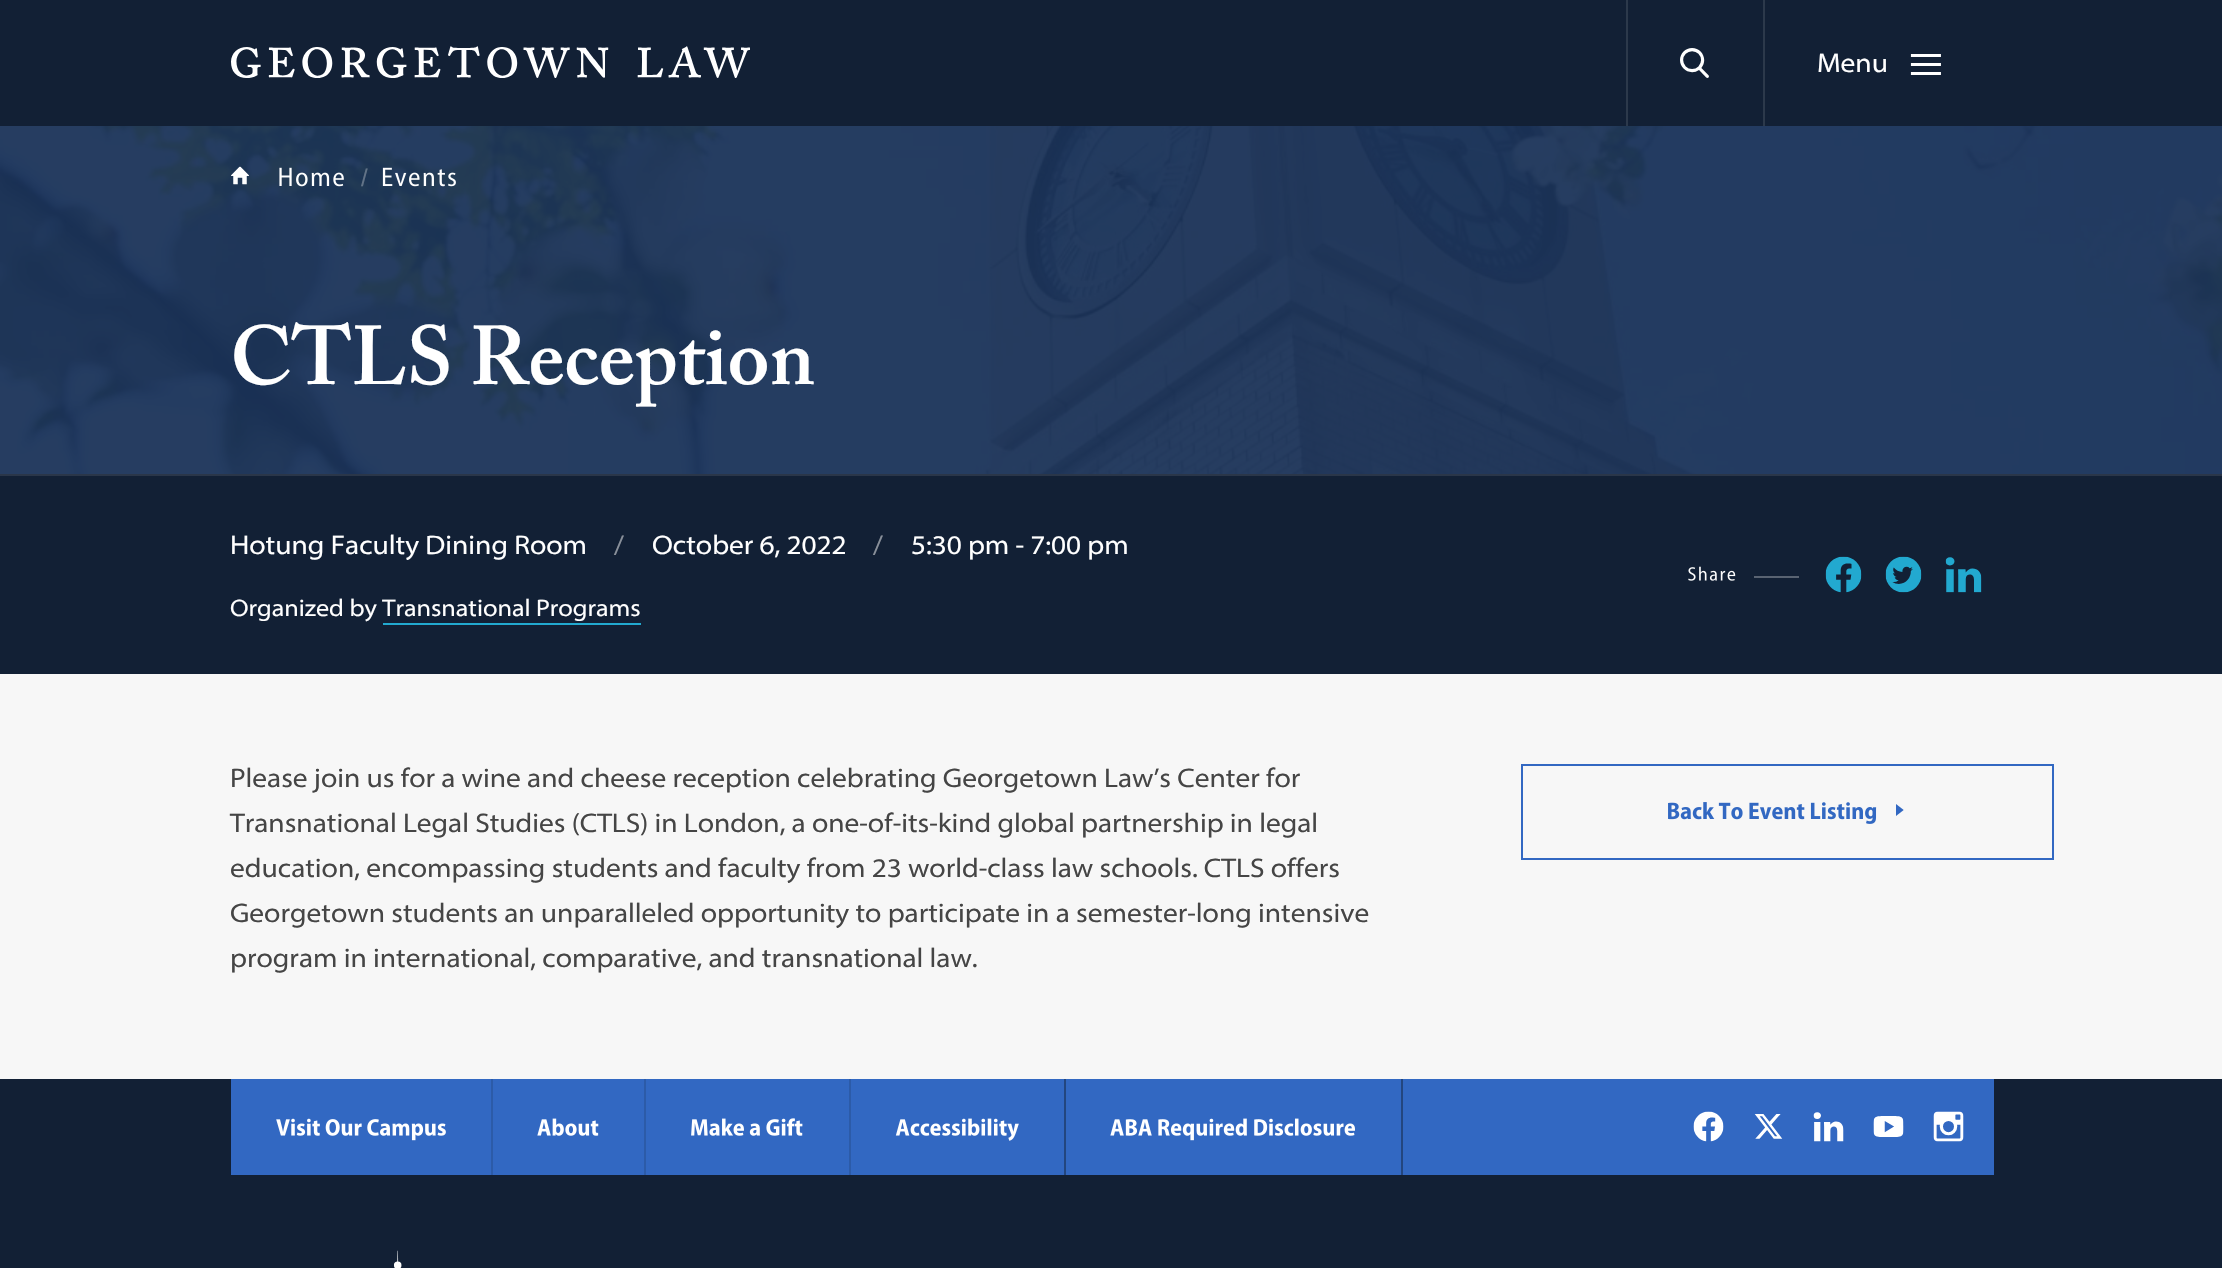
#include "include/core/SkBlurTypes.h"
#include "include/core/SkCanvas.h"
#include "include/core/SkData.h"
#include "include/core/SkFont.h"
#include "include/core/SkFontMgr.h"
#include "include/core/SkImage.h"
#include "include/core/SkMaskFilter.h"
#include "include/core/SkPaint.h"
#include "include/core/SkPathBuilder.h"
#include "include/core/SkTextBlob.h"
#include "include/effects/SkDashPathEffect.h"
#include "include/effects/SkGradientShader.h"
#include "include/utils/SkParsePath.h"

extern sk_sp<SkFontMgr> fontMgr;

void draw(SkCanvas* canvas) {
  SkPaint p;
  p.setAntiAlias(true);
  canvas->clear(SkColorSetRGB(247, 247, 247));
  p.setColor(SkColorSetRGB(18, 32, 53));
  canvas->drawRect(SkRect::MakeLTRB(0, 0, 2222, 126), p);
  canvas->drawImageRect(SkImages::DeferredFromEncodedData(SkData::MakeFromFileName("images/1.png")), SkRect::MakeLTRB(231, 46, 750, 78), SkSamplingOptions());
  p.setColor(SkColorSetRGB(44, 57, 75));
  canvas->drawRect(SkRect::MakeLTRB(1626, 0, 1628, 126), p);
  canvas->drawImageRect(SkImages::DeferredFromEncodedData(SkData::MakeFromFileName("images/2.png")), SkRect::MakeLTRB(1680, 48, 1709, 78), SkSamplingOptions());
  canvas->drawRect(SkRect::MakeLTRB(1763, 0, 1765, 126), p);
  canvas->drawImageRect(SkImages::DeferredFromEncodedData(SkData::MakeFromFileName("images/3.png")), SkRect::MakeLTRB(1910, 54, 1941, 75), SkSamplingOptions());
  p.setColor(SkColorSetRGB(26, 50, 88));
  canvas->drawRect(SkRect::MakeLTRB(0, 126, 2222, 474), p);
  canvas->drawImageRect(SkImages::DeferredFromEncodedData(SkData::MakeFromFileName("images/4.png")), SkRect::MakeLTRB(0, 126, 2222, 474), SkSamplingOptions());
  canvas->drawImageRect(SkImages::DeferredFromEncodedData(SkData::MakeFromFileName("images/5.png")), SkRect::MakeLTRB(231, 166, 249, 185), SkSamplingOptions());
  canvas->drawImageRect(SkImages::DeferredFromEncodedData(SkData::MakeFromFileName("images/6.png")), SkRect::MakeLTRB(279, 167, 344, 187), SkSamplingOptions());
  canvas->drawImageRect(SkImages::DeferredFromEncodedData(SkData::MakeFromFileName("images/7.png")), SkRect::MakeLTRB(382, 167, 456, 187), SkSamplingOptions());
  p.setColor(SkColorSetRGB(18, 32, 53));
  canvas->drawRect(SkRect::MakeLTRB(0, 476, 2222, 674), p);
  p.setColor(SkColorSetRGB(42, 54, 73));
  canvas->drawRect(SkRect::MakeLTRB(0, 474, 2222, 476), p);
  p.setColor(SkColorSetRGB(34, 169, 208));
  canvas->drawRect(SkRect::MakeLTRB(383, 623, 641, 625), p);
  canvas->drawImageRect(SkImages::DeferredFromEncodedData(SkData::MakeFromFileName("images/8.png")), SkRect::MakeLTRB(1688, 566, 1736, 581), SkSamplingOptions());
  p.setColor(SkColorSetRGB(89, 99, 114));
  canvas->drawRect(SkRect::MakeLTRB(1754, 576, 1799, 578), p);
  canvas->drawImageRect(SkImages::DeferredFromEncodedData(SkData::MakeFromFileName("images/9.png")), SkRect::MakeLTRB(1825, 556, 1862, 593), SkSamplingOptions());
  canvas->drawImageRect(SkImages::DeferredFromEncodedData(SkData::MakeFromFileName("images/10.png")), SkRect::MakeLTRB(1885, 556, 1922, 593), SkSamplingOptions());
  canvas->drawImageRect(SkImages::DeferredFromEncodedData(SkData::MakeFromFileName("images/11.png")), SkRect::MakeLTRB(1945, 557, 1982, 593), SkSamplingOptions());
  p.setStyle(SkPaint::kStroke_Style);
  p.setStrokeWidth(2);
  p.setColor(SkColorSetRGB(50, 104, 194));
  canvas->drawRect(SkRect::MakeLTRB(1522, 765, 2053, 859), p);
  canvas->drawImageRect(SkImages::DeferredFromEncodedData(SkData::MakeFromFileName("images/12.png")), SkRect::MakeLTRB(1668, 802, 1877, 824), SkSamplingOptions());
  canvas->drawImageRect(SkImages::DeferredFromEncodedData(SkData::MakeFromFileName("images/13.png")), SkRect::MakeLTRB(1896, 804, 1904, 816), SkSamplingOptions());
  p.setStyle(SkPaint::kFill_Style);
  p.setColor(SkColorSetRGB(18, 32, 53));
  canvas->drawRect(SkRect::MakeLTRB(0, 1079, 2222, 1268), p);
  p.setColor(SkColorSetRGB(50, 104, 194));
  canvas->drawRect(SkRect::MakeLTRB(231, 1079, 1994, 1175), p);
  p.setColor(SkColorSetRGB(44, 91, 168));
  canvas->drawRect(SkRect::MakeLTRB(491, 1079, 493, 1175), p);
  canvas->drawImageRect(SkImages::DeferredFromEncodedData(SkData::MakeFromFileName("images/14.png")), SkRect::MakeLTRB(276, 1118, 446, 1141), SkSamplingOptions());
  canvas->drawRect(SkRect::MakeLTRB(644, 1079, 646, 1175), p);
  canvas->drawImageRect(SkImages::DeferredFromEncodedData(SkData::MakeFromFileName("images/15.png")), SkRect::MakeLTRB(537, 1118, 599, 1136), SkSamplingOptions());
  canvas->drawRect(SkRect::MakeLTRB(849, 1079, 851, 1175), p);
  canvas->drawImageRect(SkImages::DeferredFromEncodedData(SkData::MakeFromFileName("images/16.png")), SkRect::MakeLTRB(691, 1118, 803, 1136), SkSamplingOptions());
  p.setColor(SkColorSetRGB(35, 70, 127));
  canvas->drawRect(SkRect::MakeLTRB(1064, 1079, 1066, 1175), p);
  canvas->drawImageRect(SkImages::DeferredFromEncodedData(SkData::MakeFromFileName("images/17.png")), SkRect::MakeLTRB(895, 1118, 1019, 1141), SkSamplingOptions());
  canvas->drawRect(SkRect::MakeLTRB(1401, 1079, 1403, 1175), p);
  canvas->drawImageRect(SkImages::DeferredFromEncodedData(SkData::MakeFromFileName("images/18.png")), SkRect::MakeLTRB(1110, 1118, 1355, 1141), SkSamplingOptions());
  canvas->drawImageRect(SkImages::DeferredFromEncodedData(SkData::MakeFromFileName("images/19.png")), SkRect::MakeLTRB(1693, 1111, 1724, 1142), SkSamplingOptions());
  canvas->drawImageRect(SkImages::DeferredFromEncodedData(SkData::MakeFromFileName("images/20.png")), SkRect::MakeLTRB(1754, 1114, 1783, 1139), SkSamplingOptions());
  canvas->drawImageRect(SkImages::DeferredFromEncodedData(SkData::MakeFromFileName("images/21.png")), SkRect::MakeLTRB(1813, 1112, 1844, 1142), SkSamplingOptions());
  canvas->drawImageRect(SkImages::DeferredFromEncodedData(SkData::MakeFromFileName("images/22.png")), SkRect::MakeLTRB(1873, 1116, 1904, 1137), SkSamplingOptions());
  canvas->drawImageRect(SkImages::DeferredFromEncodedData(SkData::MakeFromFileName("images/23.png")), SkRect::MakeLTRB(1933, 1111, 1964, 1142), SkSamplingOptions());
  canvas->drawImageRect(SkImages::DeferredFromEncodedData(SkData::MakeFromFileName("images/24.png")), SkRect::MakeLTRB(394, 1250, 402, 1268), SkSamplingOptions());
  SkFont font1(fontMgr->matchFamilyStyle("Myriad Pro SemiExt", SkFontStyle::Normal()), 27);
  font1.setSubpixel(true);
  p.setColor(SK_ColorWHITE);
  canvas->drawString("Menu", 1817, 72, font1, p);
  SkFont font2(fontMgr->matchFamilyStyle("Liberation Sans", SkFontStyle::Normal()), 24);
  font2.setSubpixel(true);
  p.setColor(SkColorSetRGB(98, 115, 135));
  canvas->drawString("/", 361, 186, font2, p);
  SkFont font3(fontMgr->matchFamilyStyle("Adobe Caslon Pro", SkFontStyle(600, SkFontStyle::kNormal_Width, SkFontStyle::kUpright_Slant)), 82.5f);
  font3.setSubpixel(true);
  p.setColor(SK_ColorWHITE);
  canvas->drawString("CTLS Reception", 230, 384, font3, p);
  canvas->drawString("Hotung Faculty Dining Room", 230, 554, font1, p);
  p.setColor(SkColorSetRGB(137, 144, 154));
  canvas->drawString("/", 614, 554, font1, p);
  p.setColor(SK_ColorWHITE);
  canvas->drawString("October 6, 2022", 652, 554, font1, p);
  p.setColor(SkColorSetRGB(137, 144, 154));
  canvas->drawString("/", 873, 554, font1, p);
  p.setColor(SK_ColorWHITE);
  canvas->drawString("5:30 pm - 7:00 pm", 911, 554, font1, p);
  SkFont font4(fontMgr->matchFamilyStyle("Myriad Pro SemiExt", SkFontStyle::Normal()), 24);
  font4.setSubpixel(true);
  canvas->drawString("Organized by Transnational Programs", 230, 616, font4, p);
  p.setColor(SkColorSetRGB(69, 69, 69));
  canvas->drawString("Please join us for a wine and cheese reception celebrating Georgetown Law’s Center for", 230, 787, font1, p);
  canvas->drawString("Transnational Legal Studies (CTLS) in London, a one-of-its-kind global partnership in legal", 230, 832, font1, p);
  canvas->drawString("education, encompassing students and faculty from 23 world-class law schools. CTLS offers", 230, 877, font1, p);
  canvas->drawString("Georgetown students an unparalleled opportunity to participate in a semester-long intensive", 230, 922, font1, p);
  canvas->drawString("program in international, comparative, and transnational law.", 230, 967, font1, p);
}
